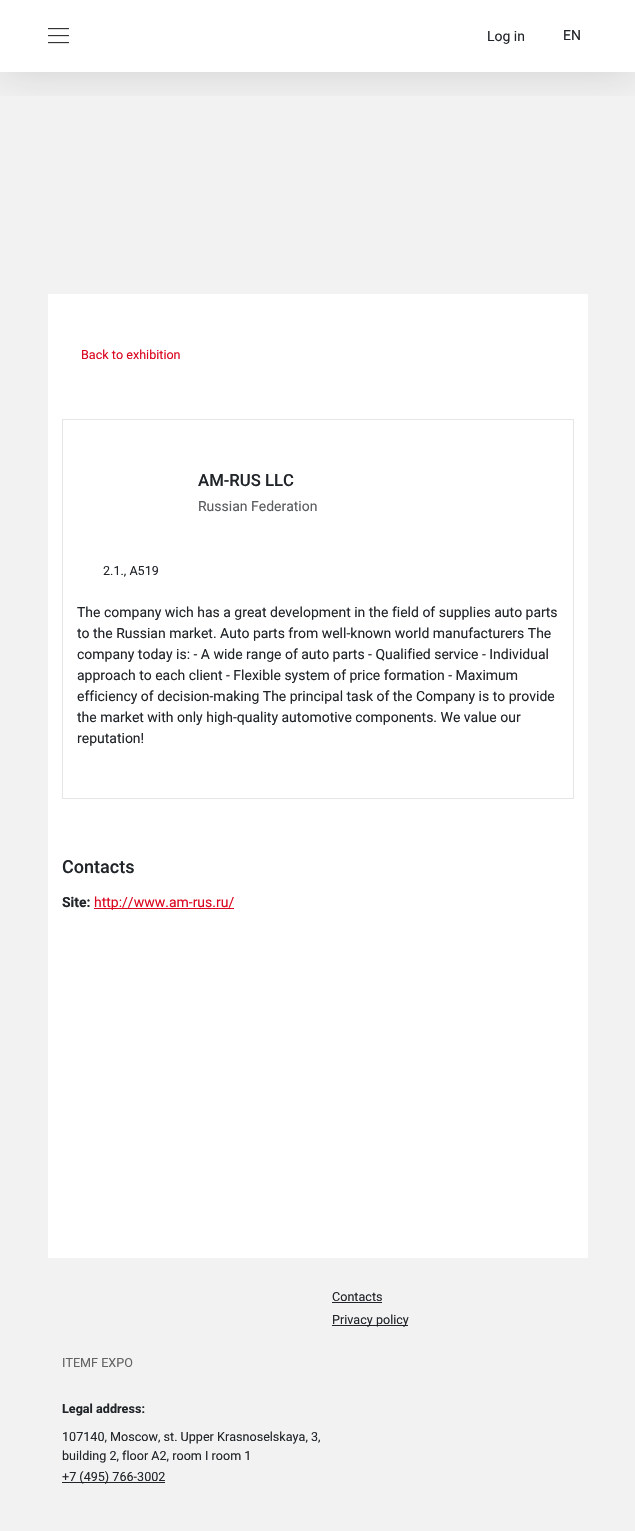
#include "include/core/SkBlurTypes.h"
#include "include/core/SkCanvas.h"
#include "include/core/SkData.h"
#include "include/core/SkFont.h"
#include "include/core/SkFontMgr.h"
#include "include/core/SkImage.h"
#include "include/core/SkMaskFilter.h"
#include "include/core/SkPaint.h"
#include "include/core/SkPathBuilder.h"
#include "include/core/SkTextBlob.h"
#include "include/effects/SkDashPathEffect.h"
#include "include/effects/SkGradientShader.h"
#include "include/utils/SkParsePath.h"

extern sk_sp<SkFontMgr> fontMgr;

void draw(SkCanvas* canvas) {
  SkPaint p;
  p.setAntiAlias(true);
  canvas->clear(SK_ColorWHITE);
  p.setColor(SkColorSetRGB(242, 242, 242));
  canvas->drawRect(SkRect::MakeLTRB(0, 72, 635, 1531), p);
  canvas->save();
  canvas->clipRect(SkRect::MakeLTRB(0, 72, 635, 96));
  p.setColor(SkColorSetARGB(38, 0, 0, 0));
  p.setMaskFilter(SkMaskFilter::MakeBlur(kNormal_SkBlurStyle, 22));
  canvas->drawRect(SkRect::MakeLTRB(0, 0, 635, 72), p);
  p.setMaskFilter(nullptr);
  canvas->restore();
  canvas->drawImageRect(SkImages::DeferredFromEncodedData(SkData::MakeFromFileName("images/1.png")), SkRect::MakeLTRB(48, 28, 69, 44), SkSamplingOptions());
  p.setColor(SK_ColorWHITE);
  canvas->drawRect(SkRect::MakeLTRB(48, 294, 588, 1258), p);
  p.setStyle(SkPaint::kStroke_Style);
  p.setStrokeWidth(1);
  p.setColor(SkColorSetRGB(230, 230, 230));
  canvas->drawRect(SkRect::MakeLTRB(62.5f, 419.5f, 573.5f, 798.5f), p);
  p.setStyle(SkPaint::kFill_Style);
  p.setColor(SkColorSetRGB(219, 7, 32));
  canvas->drawRect(SkRect::MakeLTRB(94, 908, 234, 909), p);
  p.setColor(SkColorSetRGB(33, 37, 41));
  canvas->drawRect(SkRect::MakeLTRB(332, 1302, 382, 1303), p);
  canvas->drawRect(SkRect::MakeLTRB(332, 1325, 408, 1326), p);
  canvas->drawRect(SkRect::MakeLTRB(62, 1482, 165, 1483), p);
  SkFont font1(fontMgr->matchFamilyStyle("Roboto", SkFontStyle::Normal()), 14);
  font1.setSubpixel(true);
  canvas->drawString("Log in", 487, 41, font1, p);
  canvas->drawString("EN", 563, 40, font1, p);
  SkFont font2(fontMgr->matchFamilyStyle("Roboto", SkFontStyle::Normal()), 12.6f);
  font2.setSubpixel(true);
  p.setColor(SkColorSetRGB(219, 7, 32));
  canvas->drawString("Back to exhibition", 81, 359, font2, p);
  SkFont font3(fontMgr->matchFamilyStyle("Roboto", SkFontStyle(500, SkFontStyle::kNormal_Width, SkFontStyle::kUpright_Slant)), 16.75f);
  font3.setSubpixel(true);
  p.setColor(SkColorSetRGB(33, 37, 41));
  canvas->drawString("AM-RUS LLC", 198, 486, font3, p);
  p.setColor(SkColorSetRGB(89, 92, 95));
  canvas->drawString("Russian Federation", 198, 511, font1, p);
  p.setColor(SkColorSetRGB(33, 37, 41));
  canvas->drawString("2.1., A519", 103, 575, font2, p);
  canvas->drawString("The company wich has a great development in the field of supplies auto parts", 77, 617, font1, p);
  canvas->drawString("to the Russian market. Auto parts from well-known world manufacturers The", 77, 638, font1, p);
  canvas->drawString("company today is: - A wide range of auto parts - Qualified service - Individual", 77, 659, font1, p);
  canvas->drawString("approach to each client - Flexible system of price formation - Maximum", 77, 680, font1, p);
  canvas->drawString("efficiency of decision-making The principal task of the Company is to provide", 77, 701, font1, p);
  canvas->drawString("the market with only high-quality automotive components. We value our", 77, 722, font1, p);
  canvas->drawString("reputation!", 77, 743, font1, p);
  SkFont font4(fontMgr->matchFamilyStyle("Roboto", SkFontStyle(500, SkFontStyle::kNormal_Width, SkFontStyle::kUpright_Slant)), 18);
  font4.setSubpixel(true);
  canvas->drawString("Contacts", 62, 873, font4, p);
  SkFont font5(fontMgr->matchFamilyStyle("Roboto", SkFontStyle::Bold()), 14);
  font5.setSubpixel(true);
  canvas->drawString("Site:", 62, 907, font5, p);
  p.setColor(SkColorSetRGB(219, 7, 32));
  canvas->drawString("http://www.am-rus.ru/", 94, 907, font1, p);
  p.setColor(SkColorSetRGB(33, 37, 41));
  canvas->drawString("Contacts", 332, 1301, font2, p);
  canvas->drawString("Privacy policy", 332, 1324, font2, p);
  p.setColor(SkColorSetRGB(99, 99, 99));
  canvas->drawString("ITEMF EXPO", 62, 1367, font2, p);
  SkFont font6(fontMgr->matchFamilyStyle("Roboto", SkFontStyle::Bold()), 12.6f);
  font6.setSubpixel(true);
  p.setColor(SkColorSetRGB(33, 37, 41));
  canvas->drawString("Legal address:", 62, 1413, font6, p);
  canvas->drawString("107140, Moscow, st. Upper Krasnoselskaya, 3,", 62, 1441, font2, p);
  canvas->drawString("building 2, floor A2, room I room 1", 62, 1460, font2, p);
  canvas->drawString("+7 (495) 766-3002", 62, 1481, font2, p);
}
